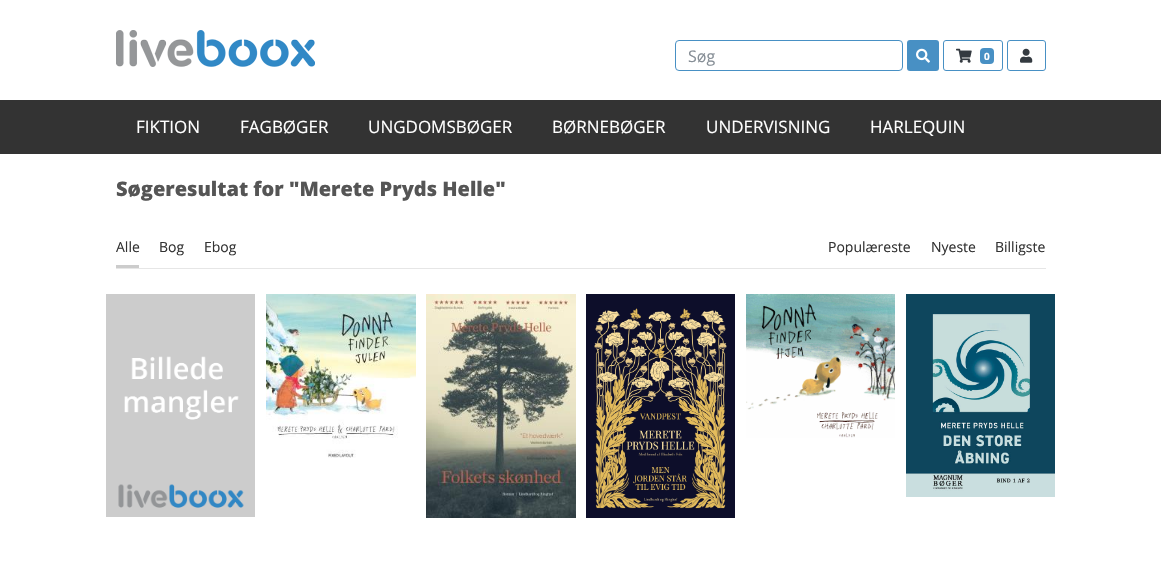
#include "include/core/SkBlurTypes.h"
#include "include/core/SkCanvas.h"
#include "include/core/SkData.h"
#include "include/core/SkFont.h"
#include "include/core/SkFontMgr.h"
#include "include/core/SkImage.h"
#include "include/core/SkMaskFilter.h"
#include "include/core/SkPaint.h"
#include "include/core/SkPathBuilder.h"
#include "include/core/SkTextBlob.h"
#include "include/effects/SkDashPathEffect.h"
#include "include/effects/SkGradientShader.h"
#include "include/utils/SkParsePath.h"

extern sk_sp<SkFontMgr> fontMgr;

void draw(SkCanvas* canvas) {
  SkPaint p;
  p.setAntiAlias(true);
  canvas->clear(SK_ColorWHITE);
  canvas->drawImageRect(SkImages::DeferredFromEncodedData(SkData::MakeFromFileName("images/1.png")), SkRect::MakeLTRB(116, 30, 315, 67), SkSamplingOptions());
  p.setStyle(SkPaint::kStroke_Style);
  p.setStrokeWidth(1);
  p.setColor(SkColorSetRGB(72, 144, 196));
  canvas->drawRoundRect(SkRect::MakeLTRB(675.5f, 40.5f, 902.5f, 70.5f), 3.5f, 3.5f, p);
  p.setStyle(SkPaint::kFill_Style);
  canvas->drawRoundRect(SkRect::MakeLTRB(907, 40, 939, 71), 3, 3, p);
  canvas->drawImageRect(SkImages::DeferredFromEncodedData(SkData::MakeFromFileName("images/2.png")), SkRect::MakeLTRB(916, 48, 930, 63), SkSamplingOptions());
  p.setStyle(SkPaint::kStroke_Style);
  canvas->drawRoundRect(SkRect::MakeLTRB(943.5f, 40.5f, 1002.5f, 70.5f), 2.5f, 2.5f, p);
  canvas->drawImageRect(SkImages::DeferredFromEncodedData(SkData::MakeFromFileName("images/3.png")), SkRect::MakeLTRB(956, 48, 972, 63), SkSamplingOptions());
  p.setStyle(SkPaint::kFill_Style);
  canvas->drawRoundRect(SkRect::MakeLTRB(980, 48, 994, 64), 4, 4, p);
  p.setStyle(SkPaint::kStroke_Style);
  canvas->drawRoundRect(SkRect::MakeLTRB(1007.5f, 40.5f, 1045.5f, 70.5f), 2.5f, 2.5f, p);
  canvas->drawImageRect(SkImages::DeferredFromEncodedData(SkData::MakeFromFileName("images/4.png")), SkRect::MakeLTRB(1020, 48, 1033, 63), SkSamplingOptions());
  p.setStyle(SkPaint::kFill_Style);
  p.setColor(SkColorSetRGB(51, 51, 51));
  canvas->drawRect(SkRect::MakeLTRB(0, 100, 1161, 154), p);
  p.setColor(SkColorSetRGB(204, 204, 204));
  canvas->drawRect(SkRect::MakeLTRB(116, 265, 139, 268), p);
  p.setColor(SkColorSetRGB(230, 230, 230));
  canvas->drawRect(SkRect::MakeLTRB(116, 268, 1046, 269), p);
  canvas->drawImageRect(SkImages::DeferredFromEncodedData(SkData::MakeFromFileName("images/5.png")), SkRect::MakeLTRB(106, 294, 255, 517), SkSamplingOptions());
  canvas->drawImageRect(SkImages::DeferredFromEncodedData(SkData::MakeFromFileName("images/6.png")), SkRect::MakeLTRB(266, 294, 416, 458), SkSamplingOptions());
  canvas->drawImageRect(SkImages::DeferredFromEncodedData(SkData::MakeFromFileName("images/7.png")), SkRect::MakeLTRB(426, 294, 576, 518), SkSamplingOptions());
  canvas->drawImageRect(SkImages::DeferredFromEncodedData(SkData::MakeFromFileName("images/8.png")), SkRect::MakeLTRB(586, 294, 735, 518), SkSamplingOptions());
  canvas->drawImageRect(SkImages::DeferredFromEncodedData(SkData::MakeFromFileName("images/9.png")), SkRect::MakeLTRB(746, 294, 895, 438), SkSamplingOptions());
  canvas->drawImageRect(SkImages::DeferredFromEncodedData(SkData::MakeFromFileName("images/10.png")), SkRect::MakeLTRB(906, 294, 1055, 497), SkSamplingOptions());
  SkFont font1(fontMgr->matchFamilyStyle("Open Sans", SkFontStyle::Normal()), 16);
  font1.setSubpixel(true);
  p.setColor(SkColorSetRGB(134, 142, 150));
  canvas->drawString("Søg", 688, 62, font1, p);
  SkFont font2(fontMgr->matchFamilyStyle("Open Sans", SkFontStyle::Bold()), 10);
  font2.setSubpixel(true);
  p.setColor(SK_ColorWHITE);
  canvas->drawString("0", 984, 60, font2, p);
  SkFont font3(fontMgr->matchFamilyStyle("Open Sans", SkFontStyle::Normal()), 17);
  font3.setSubpixel(true);
  canvas->drawString("FIKTION", 136, 133, font3, p);
  canvas->drawString("FAGBØGER", 240, 133, font3, p);
  canvas->drawString("UNGDOMSBØGER", 368, 133, font3, p);
  canvas->drawString("BØRNEBØGER", 552, 133, font3, p);
  canvas->drawString("UNDERVISNING", 706, 133, font3, p);
  canvas->drawString("HARLEQUIN", 870, 133, font3, p);
  SkFont font4(fontMgr->matchFamilyStyle("Open Sans", SkFontStyle(800, SkFontStyle::kNormal_Width, SkFontStyle::kUpright_Slant)), 20);
  font4.setSubpixel(true);
  p.setColor(SkColorSetRGB(85, 85, 85));
  canvas->drawString("Søgeresultat for \"Merete Pryds Helle\"", 116, 196, font4, p);
  SkFont font5(fontMgr->matchFamilyStyle("Open Sans", SkFontStyle::Normal()), 14);
  font5.setSubpixel(true);
  p.setColor(SkColorSetRGB(51, 51, 51));
  canvas->drawString("Alle", 116, 252, font5, p);
  canvas->drawString("Bog", 159, 252, font5, p);
  canvas->drawString("Ebog", 204, 252, font5, p);
  canvas->drawString("Populæreste", 828, 252, font5, p);
  canvas->drawString("Nyeste", 931, 252, font5, p);
  canvas->drawString("Billigste", 995, 252, font5, p);
}
